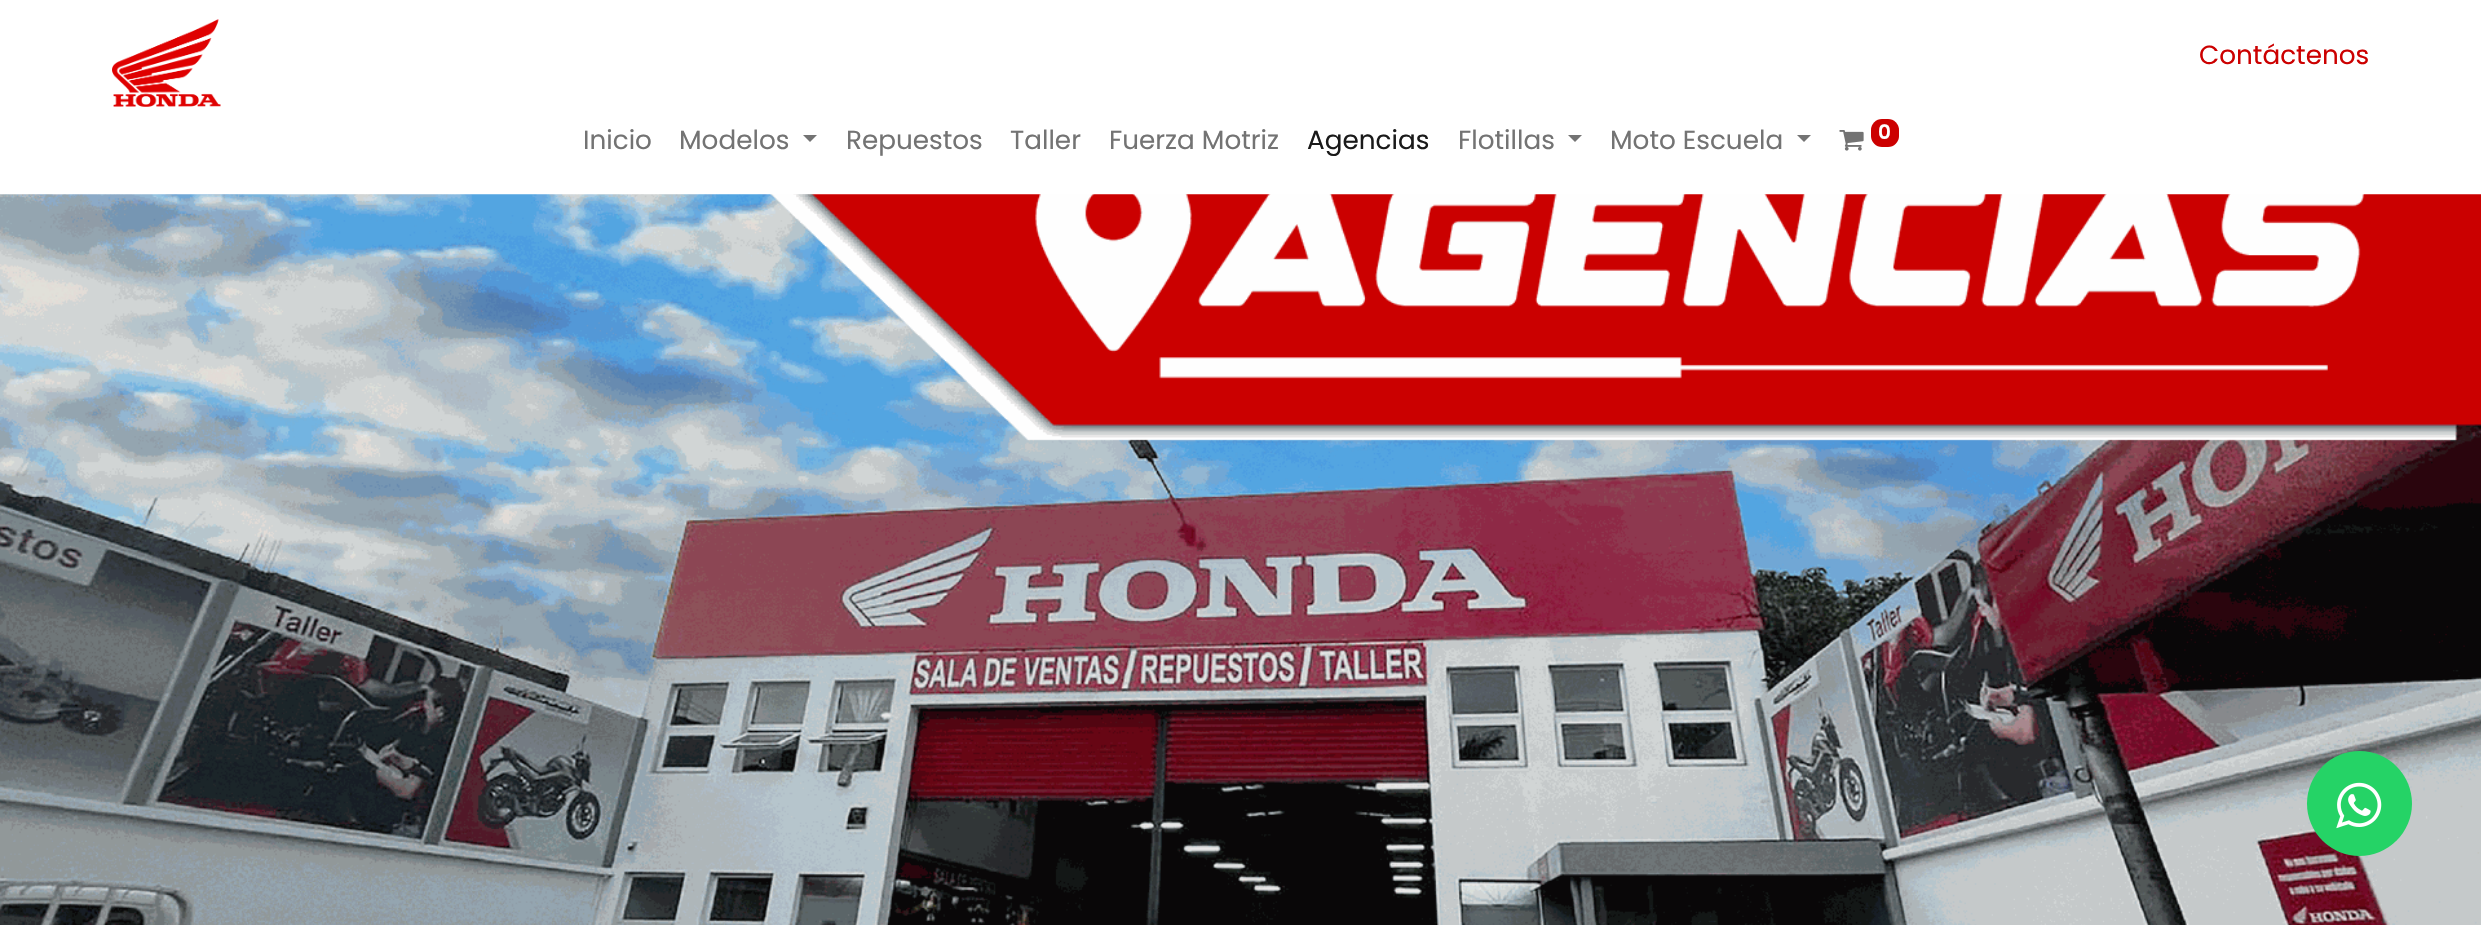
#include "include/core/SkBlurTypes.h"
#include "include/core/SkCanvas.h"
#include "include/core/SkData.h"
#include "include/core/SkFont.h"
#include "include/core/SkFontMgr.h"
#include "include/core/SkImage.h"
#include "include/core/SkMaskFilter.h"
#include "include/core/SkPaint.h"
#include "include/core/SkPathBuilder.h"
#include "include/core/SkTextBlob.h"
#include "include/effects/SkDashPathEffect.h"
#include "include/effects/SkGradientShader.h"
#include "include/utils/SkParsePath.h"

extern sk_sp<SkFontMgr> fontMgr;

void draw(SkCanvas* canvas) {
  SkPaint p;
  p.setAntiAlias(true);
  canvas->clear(SK_ColorWHITE);
  canvas->drawImageRect(SkImages::DeferredFromEncodedData(SkData::MakeFromFileName("images/1.png")), SkRect::MakeLTRB(112, 19, 221, 107), SkSamplingOptions());
  p.setColor(SkColorSetRGB(115, 115, 115));
  canvas->drawPath(SkPathBuilder().moveTo(803, 135).lineTo(817, 135).lineTo(810, 142).close().detach(), p);
  canvas->drawPath(SkPathBuilder().moveTo(1568, 135).lineTo(1582, 135).lineTo(1575, 142).close().detach(), p);
  canvas->drawPath(SkPathBuilder().moveTo(1797, 135).lineTo(1811, 135).lineTo(1804, 142).close().detach(), p);
  canvas->drawImageRect(SkImages::DeferredFromEncodedData(SkData::MakeFromFileName("images/2.png")), SkRect::MakeLTRB(1839, 130, 1864, 151), SkSamplingOptions());
  p.setColor(SkColorSetRGB(204, 0, 0));
  canvas->drawRoundRect(SkRect::MakeLTRB(1871, 119, 1899, 147), 11, 11, p);
  canvas->drawImageRect(SkImages::DeferredFromEncodedData(SkData::MakeFromFileName("images/3.png")), SkRect::MakeLTRB(0, 194, 2481, 925), SkSamplingOptions());
  p.setColor(SkColorSetRGB(37, 211, 102));
  canvas->drawCircle(2359.5f, 803.5f, 52.5f, p);
  canvas->drawImageRect(SkImages::DeferredFromEncodedData(SkData::MakeFromFileName("images/4.png")), SkRect::MakeLTRB(2336, 782, 2382, 829), SkSamplingOptions());
  SkFont font1(fontMgr->matchFamilyStyle("Poppins", SkFontStyle::Normal()), 26.25f);
  font1.setSubpixel(true);
  p.setColor(SkColorSetRGB(204, 0, 0));
  canvas->drawString("Contáctenos", 2199, 64, font1, p);
  p.setColor(SkColorSetRGB(115, 115, 115));
  canvas->drawString("Inicio", 583, 149, font1, p);
  canvas->drawString("Modelos", 679, 149, font1, p);
  canvas->drawString("Repuestos", 846, 149, font1, p);
  canvas->drawString("Taller", 1010, 149, font1, p);
  canvas->drawString("Fuerza Motriz", 1109, 149, font1, p);
  p.setColor(SkColorSetRGB(26, 26, 26));
  canvas->drawString("Agencias", 1307, 149, font1, p);
  p.setColor(SkColorSetRGB(115, 115, 115));
  canvas->drawString("Flotillas", 1458, 149, font1, p);
  canvas->drawString("Moto Escuela", 1610, 149, font1, p);
  SkFont font2(fontMgr->matchFamilyStyle("Poppins", SkFontStyle(600, SkFontStyle::kNormal_Width, SkFontStyle::kUpright_Slant)), 20);
  font2.setSubpixel(true);
  p.setColor(SK_ColorWHITE);
  canvas->drawString("0", 1878, 139, font2, p);
}
